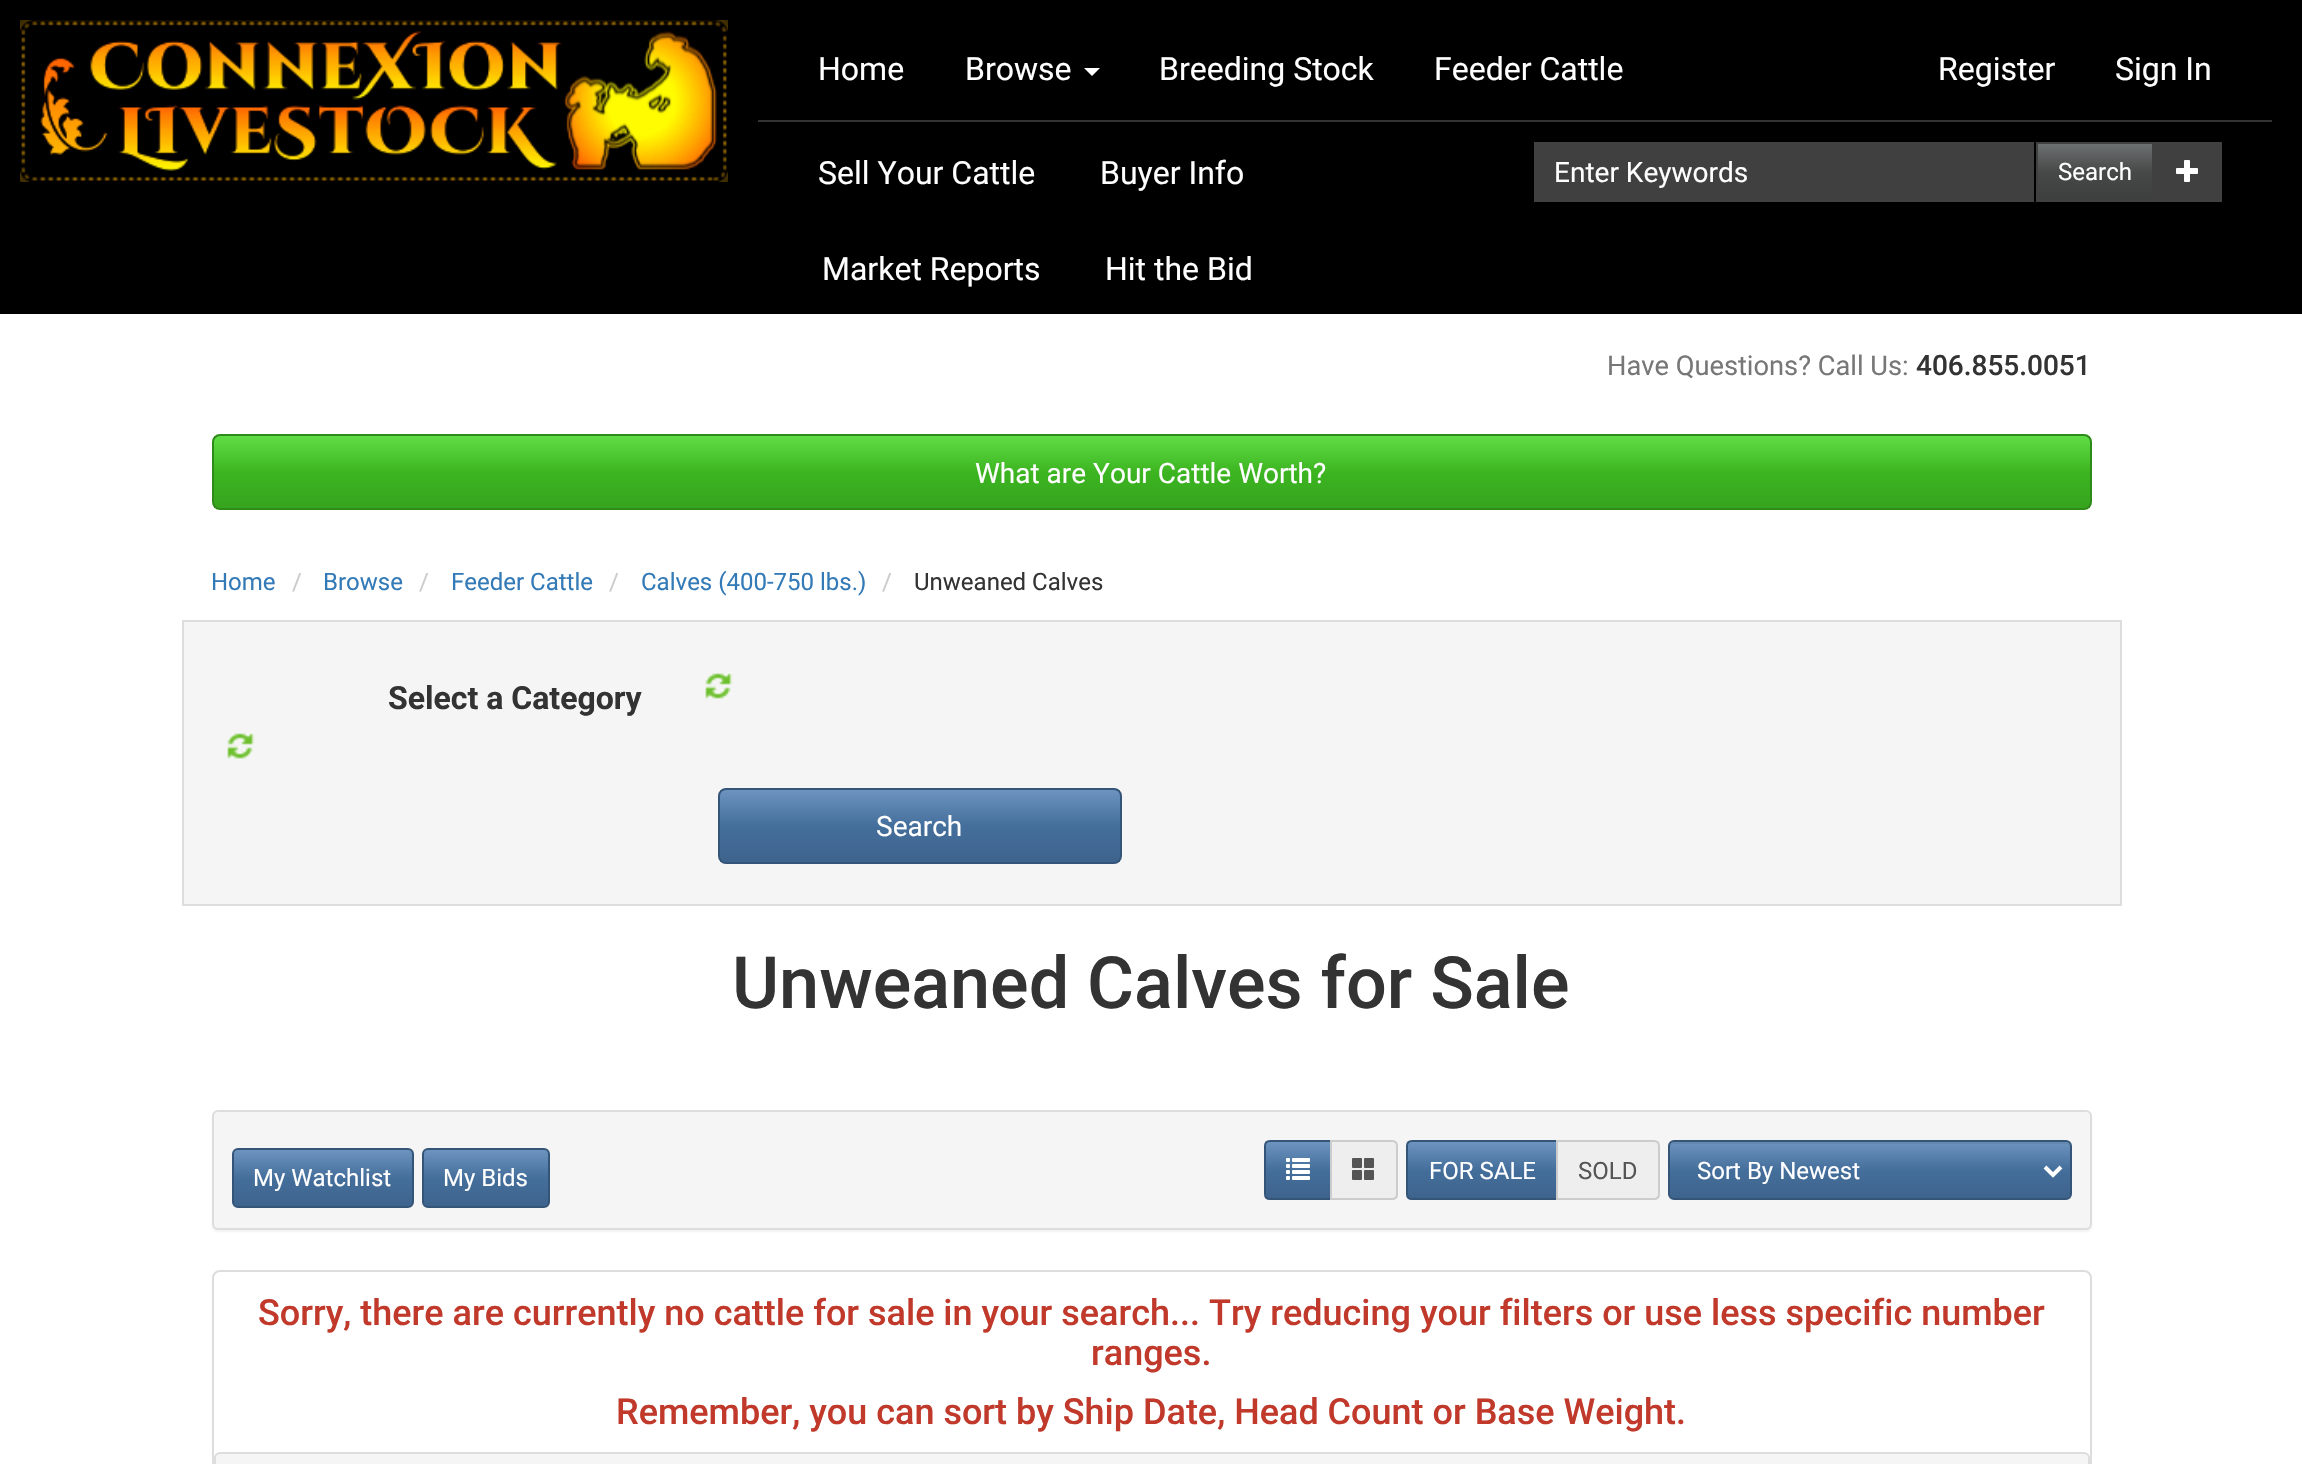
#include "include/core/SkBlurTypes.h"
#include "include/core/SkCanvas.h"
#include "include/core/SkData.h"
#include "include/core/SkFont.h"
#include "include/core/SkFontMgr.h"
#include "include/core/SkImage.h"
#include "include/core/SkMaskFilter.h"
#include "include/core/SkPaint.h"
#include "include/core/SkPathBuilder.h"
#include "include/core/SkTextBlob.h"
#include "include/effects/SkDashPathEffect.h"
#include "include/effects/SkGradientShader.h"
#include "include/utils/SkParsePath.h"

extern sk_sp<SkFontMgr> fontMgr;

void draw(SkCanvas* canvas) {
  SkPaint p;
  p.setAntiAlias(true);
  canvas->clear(SK_ColorWHITE);
  p.setColor(SK_ColorBLACK);
  canvas->drawRect(SkRect::MakeLTRB(0, 0, 2302, 314), p);
  canvas->drawImageRect(SkImages::DeferredFromEncodedData(SkData::MakeFromFileName("images/1.png")), SkRect::MakeLTRB(20, 20, 728, 182), SkSamplingOptions());
  p.setColor(SkColorSetRGB(51, 51, 51));
  canvas->drawRect(SkRect::MakeLTRB(758, 120, 2272, 122), p);
  p.setColor(SK_ColorWHITE);
  canvas->drawPath(SkPathBuilder().moveTo(1084, 68).lineTo(1100, 68).lineTo(1092, 76).close().detach(), p);
  p.setColor(SkColorSetRGB(64, 64, 64));
  canvas->drawRect(SkRect::MakeLTRB(2036, 142, 2222, 202), p);
  canvas->drawImageRect(SkImages::DeferredFromEncodedData(SkData::MakeFromFileName("images/2.png")), SkRect::MakeLTRB(2176, 160, 2198, 182), SkSamplingOptions());
  canvas->drawRect(SkRect::MakeLTRB(1534, 142, 2034, 202), p);
  {
    const SkColor colors[] = {SkColorSetRGB(109, 112, 112), SkColorSetRGB(71, 73, 73), SkColorSetRGB(61, 63, 63)};
    const float stops[] = {0, 0.5f, 1};
    const SkPoint ends[] = {{2095, 144}, {2095, 200}};
    p.setShader(SkGradientShader::MakeLinear(ends, colors, stops, 3, SkTileMode::kClamp));
    p.setAlpha(255);
  }
  canvas->drawRect(SkRect::MakeLTRB(2038, 144, 2152, 200), p);
  canvas->save();
  canvas->clipPath(SkPathBuilder().moveTo(220, 434).lineTo(2084, 434).cubicTo(2088.5f, 434, 2092, 437.5f, 2092, 442).lineTo(2092, 502).cubicTo(2092, 506.5f, 2088.5f, 510, 2084, 510).lineTo(220, 510).cubicTo(215.5f, 510, 212, 506.5f, 212, 502).lineTo(212, 442).cubicTo(212, 437.5f, 215.5f, 434, 220, 434).close().detach(), true);
  {
    const SkColor colors[] = {SkColorSetRGB(97, 221, 69), SkColorSetRGB(60, 181, 33), SkColorSetRGB(54, 164, 30)};
    const float stops[] = {0, 0.5f, 1};
    const SkPoint ends[] = {{1152, 436}, {1152, 508}};
    p.setShader(SkGradientShader::MakeLinear(ends, colors, stops, 3, SkTileMode::kClamp));
    p.setAlpha(255);
  }
  canvas->drawRect(SkRect::MakeLTRB(214, 436, 2090, 508), p);
  canvas->restore();
  p.setStyle(SkPaint::kStroke_Style);
  p.setStrokeWidth(2);
  p.setShader(nullptr);
  p.setColor(SkColorSetRGB(46, 138, 25));
  canvas->drawRoundRect(SkRect::MakeLTRB(213, 435, 2091, 509), 7, 7, p);
  p.setStyle(SkPaint::kFill_Style);
  p.setColor(SkColorSetRGB(245, 245, 245));
  canvas->drawRect(SkRect::MakeLTRB(183, 621, 2121, 905), p);
  p.setStyle(SkPaint::kStroke_Style);
  p.setColor(SkColorSetRGB(221, 221, 221));
  canvas->drawRect(SkRect::MakeLTRB(183, 621, 2121, 905), p);
  canvas->drawImageRect(SkImages::DeferredFromEncodedData(SkData::MakeFromFileName("images/3.png")), SkRect::MakeLTRB(705, 672, 733, 699), SkSamplingOptions());
  canvas->drawImageRect(SkImages::DeferredFromEncodedData(SkData::MakeFromFileName("images/3.png")), SkRect::MakeLTRB(227, 732, 255, 759), SkSamplingOptions());
  canvas->save();
  canvas->clipPath(SkPathBuilder().moveTo(726, 788).lineTo(1114, 788).cubicTo(1118.5f, 788, 1122, 791.5f, 1122, 796).lineTo(1122, 856).cubicTo(1122, 860.5f, 1118.5f, 864, 1114, 864).lineTo(726, 864).cubicTo(721.5f, 864, 718, 860.5f, 718, 856).lineTo(718, 796).cubicTo(718, 791.5f, 721.5f, 788, 726, 788).close().detach(), true);
  p.setStyle(SkPaint::kFill_Style);
  {
    const SkColor colors[] = {SkColorSetRGB(109, 148, 191), SkColorSetRGB(68, 110, 155), SkColorSetRGB(62, 100, 141)};
    const float stops[] = {0, 0.5f, 1};
    const SkPoint ends[] = {{920, 790}, {920, 862}};
    p.setShader(SkGradientShader::MakeLinear(ends, colors, stops, 3, SkTileMode::kClamp));
    p.setAlpha(255);
  }
  canvas->drawRect(SkRect::MakeLTRB(720, 790, 1120, 862), p);
  canvas->restore();
  p.setStyle(SkPaint::kStroke_Style);
  p.setShader(nullptr);
  p.setColor(SkColorSetRGB(52, 85, 120));
  canvas->drawRoundRect(SkRect::MakeLTRB(719, 789, 1121, 863), 7, 7, p);
  p.setStyle(SkPaint::kFill_Style);
  p.setColor(SkColorSetARGB(13, 0, 0, 0));
  p.setMaskFilter(SkMaskFilter::MakeBlur(kNormal_SkBlurStyle, 1));
  canvas->drawRoundRect(SkRect::MakeLTRB(212, 1112, 2092, 1232), 6, 6, p);
  p.setMaskFilter(nullptr);
  p.setColor(SkColorSetRGB(245, 245, 245));
  canvas->drawRoundRect(SkRect::MakeLTRB(213, 1111, 2091, 1229), 5, 5, p);
  p.setStyle(SkPaint::kStroke_Style);
  p.setColor(SkColorSetRGB(221, 221, 221));
  canvas->drawRoundRect(SkRect::MakeLTRB(213, 1111, 2091, 1229), 5, 5, p);
  p.setStyle(SkPaint::kFill_Style);
  {
    const SkColor colors[] = {SkColorSetRGB(109, 148, 191), SkColorSetRGB(68, 110, 155), SkColorSetRGB(62, 100, 141)};
    const float stops[] = {0, 0.5f, 1};
    const SkPoint ends[] = {{323, 1150}, {323, 1206}};
    p.setShader(SkGradientShader::MakeLinear(ends, colors, stops, 3, SkTileMode::kClamp));
    p.setAlpha(255);
  }
  canvas->drawRect(SkRect::MakeLTRB(234, 1150, 412, 1206), p);
  p.setStyle(SkPaint::kStroke_Style);
  p.setShader(nullptr);
  p.setColor(SkColorSetRGB(52, 85, 120));
  canvas->drawRoundRect(SkRect::MakeLTRB(233, 1149, 413, 1207), 5, 5, p);
  p.setStyle(SkPaint::kFill_Style);
  {
    const SkColor colors[] = {SkColorSetRGB(109, 148, 191), SkColorSetRGB(68, 110, 155), SkColorSetRGB(62, 100, 141)};
    const float stops[] = {0, 0.5f, 1};
    const SkPoint ends[] = {{486, 1150}, {486, 1206}};
    p.setShader(SkGradientShader::MakeLinear(ends, colors, stops, 3, SkTileMode::kClamp));
    p.setAlpha(255);
  }
  canvas->drawRect(SkRect::MakeLTRB(424, 1150, 548, 1206), p);
  p.setStyle(SkPaint::kStroke_Style);
  p.setShader(nullptr);
  p.setColor(SkColorSetRGB(52, 85, 120));
  canvas->drawRoundRect(SkRect::MakeLTRB(423, 1149, 549, 1207), 5, 5, p);
  p.setStyle(SkPaint::kFill_Style);
  {
    const SkColor colors[] = {SkColorSetRGB(109, 148, 191), SkColorSetRGB(68, 110, 155), SkColorSetRGB(62, 100, 141)};
    const float stops[] = {0, 0.5f, 1};
    const SkPoint ends[] = {{1298, 1142}, {1298, 1198}};
    p.setShader(SkGradientShader::MakeLinear(ends, colors, stops, 3, SkTileMode::kClamp));
    p.setAlpha(255);
  }
  canvas->drawRect(SkRect::MakeLTRB(1266, 1142, 1330, 1198), p);
  p.setStyle(SkPaint::kStroke_Style);
  p.setShader(nullptr);
  p.setColor(SkColorSetRGB(52, 85, 120));
  canvas->drawPath(SkPathBuilder().moveTo(1270, 1141).lineTo(1331, 1141).lineTo(1331, 1199).lineTo(1270, 1199).cubicTo(1267, 1199, 1265, 1197, 1265, 1194).lineTo(1265, 1146).cubicTo(1265, 1143, 1267, 1141, 1270, 1141).close().detach(), p);
  canvas->drawImageRect(SkImages::DeferredFromEncodedData(SkData::MakeFromFileName("images/4.png")), SkRect::MakeLTRB(1286, 1158, 1310, 1180), SkSamplingOptions());
  p.setStyle(SkPaint::kFill_Style);
  p.setColor(SkColorSetRGB(238, 238, 238));
  canvas->drawPath(SkPathBuilder().moveTo(1331, 1141).lineTo(1392, 1141).cubicTo(1395, 1141, 1397, 1143, 1397, 1146).lineTo(1397, 1194).cubicTo(1397, 1197, 1395, 1199, 1392, 1199).lineTo(1331, 1199).close().detach(), p);
  p.setStyle(SkPaint::kStroke_Style);
  p.setColor(SkColorSetRGB(204, 204, 204));
  canvas->drawPath(SkPathBuilder().moveTo(1331, 1141).lineTo(1392, 1141).cubicTo(1395, 1141, 1397, 1143, 1397, 1146).lineTo(1397, 1194).cubicTo(1397, 1197, 1395, 1199, 1392, 1199).lineTo(1331, 1199).close().detach(), p);
  canvas->drawImageRect(SkImages::DeferredFromEncodedData(SkData::MakeFromFileName("images/5.png")), SkRect::MakeLTRB(1352, 1158, 1374, 1180), SkSamplingOptions());
  p.setStyle(SkPaint::kFill_Style);
  {
    const SkColor colors[] = {SkColorSetRGB(109, 148, 191), SkColorSetRGB(68, 110, 155), SkColorSetRGB(62, 100, 141)};
    const float stops[] = {0, 0.5f, 1};
    const SkPoint ends[] = {{1482, 1142}, {1482, 1198}};
    p.setShader(SkGradientShader::MakeLinear(ends, colors, stops, 3, SkTileMode::kClamp));
    p.setAlpha(255);
  }
  canvas->drawRect(SkRect::MakeLTRB(1408, 1142, 1556, 1198), p);
  p.setStyle(SkPaint::kStroke_Style);
  p.setShader(nullptr);
  p.setColor(SkColorSetRGB(52, 85, 120));
  canvas->drawPath(SkPathBuilder().moveTo(1412, 1141).lineTo(1557, 1141).lineTo(1557, 1199).lineTo(1412, 1199).cubicTo(1409, 1199, 1407, 1197, 1407, 1194).lineTo(1407, 1146).cubicTo(1407, 1143, 1409, 1141, 1412, 1141).close().detach(), p);
  p.setStyle(SkPaint::kFill_Style);
  p.setColor(SkColorSetRGB(238, 238, 238));
  canvas->drawPath(SkPathBuilder().moveTo(1557, 1141).lineTo(1654, 1141).cubicTo(1657, 1141, 1659, 1143, 1659, 1146).lineTo(1659, 1194).cubicTo(1659, 1197, 1657, 1199, 1654, 1199).lineTo(1557, 1199).close().detach(), p);
  p.setStyle(SkPaint::kStroke_Style);
  p.setColor(SkColorSetRGB(204, 204, 204));
  canvas->drawPath(SkPathBuilder().moveTo(1557, 1141).lineTo(1654, 1141).cubicTo(1657, 1141, 1659, 1143, 1659, 1146).lineTo(1659, 1194).cubicTo(1659, 1197, 1657, 1199, 1654, 1199).lineTo(1557, 1199).close().detach(), p);
  p.setStyle(SkPaint::kFill_Style);
  {
    const SkColor colors[] = {SkColorSetRGB(109, 148, 191), SkColorSetRGB(68, 110, 155), SkColorSetRGB(62, 100, 141)};
    const float stops[] = {0, 0.5f, 1};
    const SkPoint ends[] = {{1870, 1142}, {1870, 1198}};
    p.setShader(SkGradientShader::MakeLinear(ends, colors, stops, 3, SkTileMode::kClamp));
    p.setAlpha(255);
  }
  canvas->drawRect(SkRect::MakeLTRB(1670, 1142, 2070, 1198), p);
  p.setShader(nullptr);
  p.setColor(SkColorSetARGB(18, 0, 0, 0));
  canvas->drawPath(SkPathBuilder().moveTo(1674, 1144).lineTo(2066, 1144).cubicTo(2068, 1144, 2070, 1146, 2070, 1148).cubicTo(2070, 1145, 2070, 1142, 2066, 1142).lineTo(1674, 1142).cubicTo(1670, 1142, 1670, 1145, 1670, 1148).cubicTo(1670, 1146, 1672, 1144, 1674, 1144).close().detach(), p);
  p.setStyle(SkPaint::kStroke_Style);
  p.setColor(SkColorSetRGB(52, 85, 120));
  canvas->drawRoundRect(SkRect::MakeLTRB(1669, 1141, 2071, 1199), 5, 5, p);
  p.setStrokeWidth(4);
  p.setColor(SK_ColorWHITE);
  canvas->drawPath(SkPathBuilder().moveTo(2045, 1167).lineTo(2053, 1175).lineTo(2061, 1167).detach(), p);
  p.setStrokeWidth(2);
  p.setColor(SkColorSetRGB(221, 221, 221));
  canvas->drawRoundRect(SkRect::MakeLTRB(213, 1271, 2091, 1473), 7, 7, p);
  p.setStyle(SkPaint::kFill_Style);
  p.setColor(SkColorSetRGB(245, 245, 245));
  canvas->drawRoundRect(SkRect::MakeLTRB(215, 1453, 2089, 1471), 5, 5, p);
  p.setStyle(SkPaint::kStroke_Style);
  p.setColor(SkColorSetRGB(221, 221, 221));
  canvas->drawRoundRect(SkRect::MakeLTRB(215, 1453, 2089, 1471), 5, 5, p);
  SkFont font1(fontMgr->matchFamilyStyle("Roboto", SkFontStyle::Normal()), 32);
  font1.setSubpixel(true);
  p.setStyle(SkPaint::kFill_Style);
  p.setColor(SK_ColorWHITE);
  canvas->drawString("Home", 818, 80, font1, p);
  canvas->drawString("Browse", 965, 80, font1, p);
  canvas->drawString("Breeding Stock", 1159, 80, font1, p);
  canvas->drawString("Feeder Cattle", 1434, 80, font1, p);
  canvas->drawString("Register", 1938, 80, font1, p);
  canvas->drawString("Sign In", 2115, 80, font1, p);
  canvas->drawString("Sell Your Cattle", 818, 184, font1, p);
  canvas->drawString("Buyer Info", 1100, 184, font1, p);
  canvas->drawString("Market Reports", 822, 280, font1, p);
  canvas->drawString("Hit the Bid", 1105, 280, font1, p);
  SkFont font2(fontMgr->matchFamilyStyle("Roboto", SkFontStyle::Normal()), 28);
  font2.setSubpixel(true);
  canvas->drawString("Enter Keywords", 1554, 182, font2, p);
  SkFont font3(fontMgr->matchFamilyStyle("Roboto", SkFontStyle::Normal()), 24);
  font3.setSubpixel(true);
  canvas->drawString("Search", 2058, 180, font3, p);
  SkFont font4(fontMgr->matchFamilyStyle("Roboto", SkFontStyle::Normal()), 27.25f);
  font4.setSubpixel(true);
  p.setColor(SkColorSetRGB(119, 119, 119));
  canvas->drawString("Have Questions? Call Us:", 1607, 375, font4, p);
  SkFont font5(fontMgr->matchFamilyStyle("Roboto", SkFontStyle(500, SkFontStyle::kNormal_Width, SkFontStyle::kUpright_Slant)), 28);
  font5.setSubpixel(true);
  p.setColor(SkColorSetRGB(51, 51, 51));
  canvas->drawString("406.855.0051", 1916, 375, font5, p);
  p.setColor(SK_ColorWHITE);
  canvas->drawString("What are Your Cattle Worth?", 975, 483, font2, p);
  p.setColor(SkColorSetRGB(51, 122, 183));
  canvas->drawString("Home", 211, 590, font3, p);
  p.setColor(SkColorSetRGB(204, 204, 204));
  canvas->drawString("/", 292, 590, font3, p);
  p.setColor(SkColorSetRGB(51, 122, 183));
  canvas->drawString("Browse", 323, 590, font3, p);
  p.setColor(SkColorSetRGB(204, 204, 204));
  canvas->drawString("/", 419, 590, font3, p);
  p.setColor(SkColorSetRGB(51, 122, 183));
  canvas->drawString("Feeder Cattle", 451, 590, font3, p);
  p.setColor(SkColorSetRGB(204, 204, 204));
  canvas->drawString("/", 609, 590, font3, p);
  p.setColor(SkColorSetRGB(51, 122, 183));
  canvas->drawString("Calves (400-750 lbs.)", 641, 590, font3, p);
  p.setColor(SkColorSetRGB(204, 204, 204));
  canvas->drawString("/", 882, 590, font3, p);
  p.setColor(SkColorSetRGB(51, 51, 51));
  canvas->drawString("Unweaned Calves", 914, 590, font3, p);
  SkFont font6(fontMgr->matchFamilyStyle("Roboto", SkFontStyle::Bold()), 32);
  font6.setSubpixel(true);
  canvas->drawString("Select a Category", 388, 709, font6, p);
  p.setColor(SK_ColorWHITE);
  canvas->drawString("Search", 876, 836, font2, p);
  SkFont font7(fontMgr->matchFamilyStyle("Roboto", SkFontStyle(500, SkFontStyle::kNormal_Width, SkFontStyle::kUpright_Slant)), 72);
  font7.setSubpixel(true);
  p.setColor(SkColorSetRGB(51, 51, 51));
  canvas->drawString("Unweaned Calves for Sale", 732, 1008, font7, p);
  p.setColor(SK_ColorWHITE);
  canvas->drawString("My Watchlist", 253, 1186, font3, p);
  canvas->drawString("My Bids", 443, 1186, font3, p);
  canvas->drawString("FOR SALE", 1429, 1179, font3, p);
  p.setColor(SkColorSetRGB(85, 85, 85));
  canvas->drawString("SOLD", 1578, 1179, font3, p);
  p.setColor(SK_ColorWHITE);
  canvas->drawString("Sort By Newest", 1697, 1179, font3, p);
  SkFont font8(fontMgr->matchFamilyStyle("Roboto", SkFontStyle(500, SkFontStyle::kNormal_Width, SkFontStyle::kUpright_Slant)), 36);
  font8.setSubpixel(true);
  p.setColor(SkColorSetRGB(192, 57, 43));
  canvas->drawString("Sorry, there are currently no cattle for sale in your search... Try reducing your filters or use less specific number", 258, 1325, font8, p);
  canvas->drawString("ranges.", 1091, 1365, font8, p);
  canvas->drawString("Remember, you can sort by Ship Date, Head Count or Base Weight.", 616, 1424, font8, p);
}
